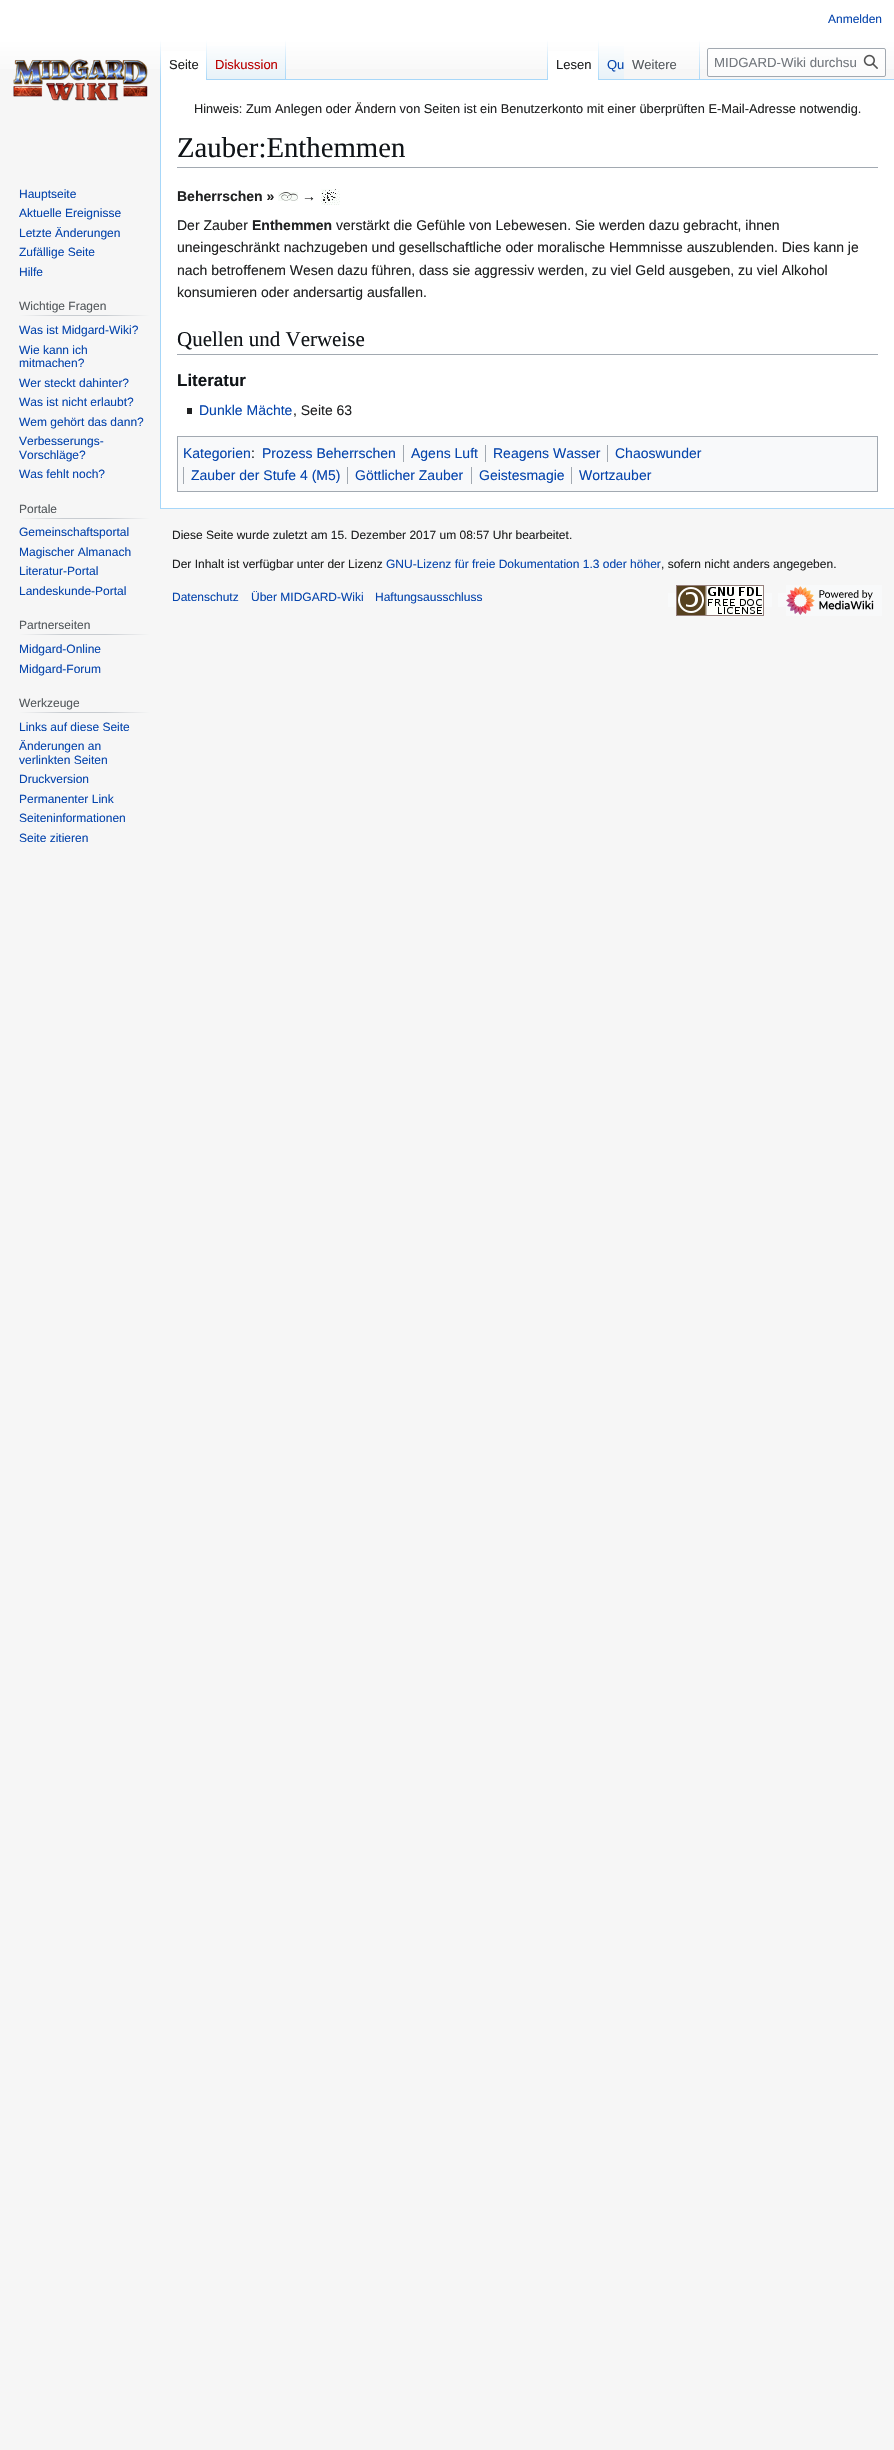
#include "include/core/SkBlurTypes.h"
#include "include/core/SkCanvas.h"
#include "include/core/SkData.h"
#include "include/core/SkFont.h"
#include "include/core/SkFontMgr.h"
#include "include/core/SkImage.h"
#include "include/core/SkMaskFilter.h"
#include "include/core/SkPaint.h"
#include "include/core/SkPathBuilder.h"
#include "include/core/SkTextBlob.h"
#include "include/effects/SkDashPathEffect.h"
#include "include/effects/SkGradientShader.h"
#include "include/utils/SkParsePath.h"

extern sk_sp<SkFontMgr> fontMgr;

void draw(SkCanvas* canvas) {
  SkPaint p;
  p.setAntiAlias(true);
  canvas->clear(SkColorSetRGB(246, 246, 246));
  {
    const SkColor colors[] = {SK_ColorWHITE, SkColorSetRGB(246, 246, 246)};
    const float stops[] = {0.5f, 1};
    const SkPoint ends[] = {{447, 0}, {447, 80}};
    p.setShader(SkGradientShader::MakeLinear(ends, colors, stops, 2, SkTileMode::kClamp));
    p.setAlpha(255);
  }
  canvas->drawRect(SkRect::MakeLTRB(0, 0, 894, 69), p);
  p.setShader(nullptr);
  p.setColor(SkColorSetRGB(167, 215, 249));
  canvas->drawRect(SkRect::MakeLTRB(160, 508, 894, 509), p);
  canvas->drawRect(SkRect::MakeLTRB(160, 79, 161, 509), p);
  {
    const SkColor colors[] = {SkColorSetARGB(0, 167, 215, 249), SkColorSetRGB(167, 215, 249)};
    const float stops[] = {0, 1};
    const SkPoint ends[] = {{161, 40}, {161, 80}};
    p.setShader(SkGradientShader::MakeLinear(ends, colors, stops, 2, SkTileMode::kClamp));
    p.setAlpha(255);
  }
  canvas->drawRect(SkRect::MakeLTRB(160, 40, 161, 80), p);
  p.setShader(nullptr);
  p.setColor(SK_ColorWHITE);
  canvas->drawRect(SkRect::MakeLTRB(161, 51, 206, 80), p);
  {
    const SkColor colors[] = {SK_ColorWHITE, SkColorSetRGB(167, 215, 249)};
    const float stops[] = {0, 1};
    const SkPoint ends[] = {{207, 40}, {207, 80}};
    p.setShader(SkGradientShader::MakeLinear(ends, colors, stops, 2, SkTileMode::kClamp));
    p.setAlpha(255);
  }
  canvas->drawRect(SkRect::MakeLTRB(206, 40, 207, 80), p);
  {
    const SkColor colors[] = {SkColorSetRGB(119, 193, 246), SkColorSetRGB(232, 242, 248), SK_ColorWHITE};
    const float stops[] = {0, 0.03f, 1};
    const SkPoint ends[] = {{247, 80}, {247, 40}};
    p.setShader(SkGradientShader::MakeLinear(ends, colors, stops, 3, SkTileMode::kClamp));
    p.setAlpha(255);
  }
  canvas->drawRect(SkRect::MakeLTRB(207, 46, 286, 80), p);
  {
    const SkColor colors[] = {SkColorSetARGB(0, 167, 215, 249), SkColorSetRGB(167, 215, 249)};
    const float stops[] = {0, 1};
    const SkPoint ends[] = {{286, 40}, {286, 80}};
    p.setShader(SkGradientShader::MakeLinear(ends, colors, stops, 2, SkTileMode::kClamp));
    p.setAlpha(255);
  }
  canvas->drawRect(SkRect::MakeLTRB(285, 40, 286, 80), p);
  p.setShader(nullptr);
  p.setColor(SkColorSetRGB(167, 215, 249));
  canvas->drawRect(SkRect::MakeLTRB(286, 79, 894, 80), p);
  {
    const SkColor colors[] = {SkColorSetARGB(0, 167, 215, 249), SkColorSetRGB(167, 215, 249)};
    const float stops[] = {0, 1};
    const SkPoint ends[] = {{548, 40}, {548, 80}};
    p.setShader(SkGradientShader::MakeLinear(ends, colors, stops, 2, SkTileMode::kClamp));
    p.setAlpha(255);
  }
  canvas->drawRect(SkRect::MakeLTRB(547, 40, 548, 80), p);
  p.setShader(nullptr);
  p.setColor(SK_ColorWHITE);
  canvas->drawRect(SkRect::MakeLTRB(548, 51, 598, 80), p);
  {
    const SkColor colors[] = {SK_ColorWHITE, SkColorSetRGB(167, 215, 249)};
    const float stops[] = {0, 1};
    const SkPoint ends[] = {{599, 40}, {599, 80}};
    p.setShader(SkGradientShader::MakeLinear(ends, colors, stops, 2, SkTileMode::kClamp));
    p.setAlpha(255);
  }
  canvas->drawRect(SkRect::MakeLTRB(598, 40, 599, 80), p);
  {
    const SkColor colors[] = {SkColorSetRGB(119, 193, 246), SkColorSetRGB(232, 242, 248), SK_ColorWHITE};
    const float stops[] = {0, 0.03f, 1};
    const SkPoint ends[] = {{612, 80}, {612, 40}};
    p.setShader(SkGradientShader::MakeLinear(ends, colors, stops, 3, SkTileMode::kClamp));
    p.setAlpha(255);
  }
  canvas->drawRect(SkRect::MakeLTRB(599, 46, 624, 79), p);
  {
    const SkColor colors[] = {SkColorSetARGB(0, 167, 215, 249), SkColorSetRGB(167, 215, 249)};
    const float stops[] = {0, 1};
    const SkPoint ends[] = {{700, 40}, {700, 80}};
    p.setShader(SkGradientShader::MakeLinear(ends, colors, stops, 2, SkTileMode::kClamp));
    p.setAlpha(255);
  }
  canvas->drawRect(SkRect::MakeLTRB(699, 40, 700, 80), p);
  p.setShader(nullptr);
  p.setColor(SkColorSetARGB(128, 255, 255, 255));
  canvas->drawRoundRect(SkRect::MakeLTRB(707.5f, 48.5f, 885.5f, 76.5f), 1.5f, 1.5f, p);
  p.setStyle(SkPaint::kStroke_Style);
  p.setStrokeWidth(1);
  p.setColor(SkColorSetRGB(162, 169, 177));
  canvas->drawRoundRect(SkRect::MakeLTRB(707.5f, 48.5f, 885.5f, 76.5f), 1.5f, 1.5f, p);
  canvas->drawImageRect(SkImages::DeferredFromEncodedData(SkData::MakeFromFileName("images/1.png")), SkRect::MakeLTRB(863, 54, 878, 69), SkSamplingOptions());
  canvas->drawImageRect(SkImages::DeferredFromEncodedData(SkData::MakeFromFileName("images/2.png")), SkRect::MakeLTRB(13, 59, 148, 101), SkSamplingOptions());
  p.setStyle(SkPaint::kFill_Style);
  {
    const SkColor colors[] = {SkColorSetRGB(246, 246, 246), SkColorSetRGB(200, 204, 209), SkColorSetRGB(200, 204, 209), SkColorSetRGB(246, 246, 246)};
    const float stops[] = {0, 0.33f, 0.66f, 1};
    const SkPoint ends[] = {{19, 316}, {150, 316}};
    p.setShader(SkGradientShader::MakeLinear(ends, colors, stops, 4, SkTileMode::kClamp));
    p.setAlpha(255);
  }
  canvas->drawRect(SkRect::MakeLTRB(19, 315, 150, 316), p);
  {
    const SkColor colors[] = {SkColorSetRGB(246, 246, 246), SkColorSetRGB(200, 204, 209), SkColorSetRGB(200, 204, 209), SkColorSetRGB(246, 246, 246)};
    const float stops[] = {0, 0.33f, 0.66f, 1};
    const SkPoint ends[] = {{19, 519}, {150, 519}};
    p.setShader(SkGradientShader::MakeLinear(ends, colors, stops, 4, SkTileMode::kClamp));
    p.setAlpha(255);
  }
  canvas->drawRect(SkRect::MakeLTRB(19, 518, 150, 519), p);
  {
    const SkColor colors[] = {SkColorSetRGB(246, 246, 246), SkColorSetRGB(200, 204, 209), SkColorSetRGB(200, 204, 209), SkColorSetRGB(246, 246, 246)};
    const float stops[] = {0, 0.33f, 0.66f, 1};
    const SkPoint ends[] = {{19, 635}, {150, 635}};
    p.setShader(SkGradientShader::MakeLinear(ends, colors, stops, 4, SkTileMode::kClamp));
    p.setAlpha(255);
  }
  canvas->drawRect(SkRect::MakeLTRB(19, 634, 150, 635), p);
  {
    const SkColor colors[] = {SkColorSetRGB(246, 246, 246), SkColorSetRGB(200, 204, 209), SkColorSetRGB(200, 204, 209), SkColorSetRGB(246, 246, 246)};
    const float stops[] = {0, 0.33f, 0.66f, 1};
    const SkPoint ends[] = {{19, 713}, {150, 713}};
    p.setShader(SkGradientShader::MakeLinear(ends, colors, stops, 4, SkTileMode::kClamp));
    p.setAlpha(255);
  }
  canvas->drawRect(SkRect::MakeLTRB(19, 712, 150, 713), p);
  p.setShader(nullptr);
  p.setColor(SK_ColorWHITE);
  canvas->drawRect(SkRect::MakeLTRB(161, 80, 894, 508), p);
  p.setColor(SkColorSetRGB(162, 169, 177));
  canvas->drawRect(SkRect::MakeLTRB(177, 167, 878, 168), p);
  canvas->drawImageRect(SkImages::DeferredFromEncodedData(SkData::MakeFromFileName("images/3.png")), SkRect::MakeLTRB(278, 192, 298, 201), SkSamplingOptions());
  canvas->drawImageRect(SkImages::DeferredFromEncodedData(SkData::MakeFromFileName("images/4.png")), SkRect::MakeLTRB(321, 189, 340, 205), SkSamplingOptions());
  canvas->drawRect(SkRect::MakeLTRB(177, 354, 878, 355), p);
  p.setColor(SkColorSetRGB(32, 33, 34));
  canvas->drawRect(SkRect::MakeLTRB(187, 408, 192, 414), p);
  p.setColor(SkColorSetRGB(248, 249, 250));
  canvas->drawRect(SkRect::MakeLTRB(177.5f, 436.5f, 877.5f, 491.5f), p);
  p.setStyle(SkPaint::kStroke_Style);
  p.setColor(SkColorSetRGB(162, 169, 177));
  canvas->drawRect(SkRect::MakeLTRB(177.5f, 436.5f, 877.5f, 491.5f), p);
  p.setStyle(SkPaint::kFill_Style);
  canvas->drawRect(SkRect::MakeLTRB(403, 445, 404, 462), p);
  canvas->drawRect(SkRect::MakeLTRB(485, 445, 486, 462), p);
  canvas->drawRect(SkRect::MakeLTRB(607, 445, 608, 462), p);
  canvas->drawRect(SkRect::MakeLTRB(183, 467, 184, 484), p);
  canvas->drawRect(SkRect::MakeLTRB(347, 467, 348, 484), p);
  canvas->drawRect(SkRect::MakeLTRB(471, 467, 472, 484), p);
  canvas->drawRect(SkRect::MakeLTRB(571, 467, 572, 484), p);
  p.setColor(SkColorSetRGB(248, 249, 250));
  canvas->drawRect(SkRect::MakeLTRB(668, 593, 772, 607), p);
  canvas->drawImageRect(SkImages::DeferredFromEncodedData(SkData::MakeFromFileName("images/5.png")), SkRect::MakeLTRB(676, 585, 764, 616), SkSamplingOptions());
  canvas->drawRect(SkRect::MakeLTRB(786, 585, 882, 616), p);
  canvas->drawRect(SkRect::MakeLTRB(778, 593, 786, 607), p);
  canvas->drawImageRect(SkImages::DeferredFromEncodedData(SkData::MakeFromFileName("images/6.png")), SkRect::MakeLTRB(786, 586, 874, 615), SkSamplingOptions());
  SkFont font1(fontMgr->matchFamilyStyle("Liberation Sans", SkFontStyle::Normal()), 12);
  font1.setSubpixel(true);
  p.setColor(SkColorSetRGB(6, 69, 173));
  canvas->drawString("Anmelden", 828, 23, font1, p);
  SkFont font2(fontMgr->matchFamilyStyle("Liberation Sans", SkFontStyle::Normal()), 13);
  font2.setSubpixel(true);
  p.setColor(SkColorSetRGB(32, 33, 34));
  canvas->drawString("Seite", 169, 69, font2, p);
  p.setColor(SkColorSetRGB(186, 0, 0));
  canvas->drawString("Diskussion", 215, 69, font2, p);
  p.setColor(SkColorSetRGB(32, 33, 34));
  canvas->drawString("Lesen", 556, 69, font2, p);
  p.setColor(SkColorSetRGB(6, 69, 173));
  canvas->drawString("Qu", 607, 69, font2, p);
  p.setColor(SkColorSetRGB(84, 89, 93));
  canvas->drawString("Weitere", 632, 69, font2, p);
  canvas->save();
  canvas->clipRect(SkRect::MakeLTRB(714, 55, 856, 70));
  SkFont font3(fontMgr->matchFamilyStyle("Liberation Sans", SkFontStyle::Normal()), 13.25f);
  font3.setSubpixel(true);
  p.setColor(SkColorSetRGB(114, 119, 125));
  canvas->drawString("MIDGARD-Wiki durchsu", 714, 67, font3, p);
  canvas->restore();
  p.setColor(SkColorSetRGB(6, 69, 173));
  canvas->drawString("Hauptseite", 19, 198, font1, p);
  canvas->drawString("Aktuelle Ereignisse", 19, 217, font1, p);
  canvas->drawString("Letzte Änderungen", 19, 237, font1, p);
  canvas->drawString("Zufällige Seite", 19, 256, font1, p);
  canvas->drawString("Hilfe", 19, 276, font1, p);
  p.setColor(SkColorSetRGB(84, 89, 93));
  canvas->drawString("Wichtige Fragen", 19, 310, font1, p);
  p.setColor(SkColorSetRGB(6, 69, 173));
  canvas->drawString("Was ist Midgard-Wiki?", 19, 334, font1, p);
  canvas->drawString("Wie kann ich", 19, 354, font1, p);
  canvas->drawString("mitmachen?", 19, 367, font1, p);
  canvas->drawString("Wer steckt dahinter?", 19, 387, font1, p);
  canvas->drawString("Was ist nicht erlaubt?", 19, 406, font1, p);
  canvas->drawString("Wem gehört das dann?", 19, 426, font1, p);
  canvas->drawString("Verbesserungs-", 19, 445, font1, p);
  canvas->drawString("Vorschläge?", 19, 459, font1, p);
  canvas->drawString("Was fehlt noch?", 19, 478, font1, p);
  p.setColor(SkColorSetRGB(84, 89, 93));
  canvas->drawString("Portale", 19, 513, font1, p);
  p.setColor(SkColorSetRGB(6, 69, 173));
  canvas->drawString("Gemeinschaftsportal", 19, 536, font1, p);
  canvas->drawString("Magischer Almanach", 19, 556, font1, p);
  canvas->drawString("Literatur-Portal", 19, 575, font1, p);
  canvas->drawString("Landeskunde-Portal", 19, 595, font1, p);
  p.setColor(SkColorSetRGB(84, 89, 93));
  canvas->drawString("Partnerseiten", 19, 629, font1, p);
  p.setColor(SkColorSetRGB(6, 69, 173));
  canvas->drawString("Midgard-Online", 19, 653, font1, p);
  canvas->drawString("Midgard-Forum", 19, 673, font1, p);
  p.setColor(SkColorSetRGB(84, 89, 93));
  canvas->drawString("Werkzeuge", 19, 707, font1, p);
  p.setColor(SkColorSetRGB(6, 69, 173));
  canvas->drawString("Links auf diese Seite", 19, 731, font1, p);
  canvas->drawString("Änderungen an", 19, 750, font1, p);
  canvas->drawString("verlinkten Seiten", 19, 764, font1, p);
  canvas->drawString("Druckversion", 19, 783, font1, p);
  canvas->drawString("Permanenter Link", 19, 803, font1, p);
  canvas->drawString("Seiteninformationen", 19, 822, font1, p);
  canvas->drawString("Seite zitieren", 19, 842, font1, p);
  SkFont font4(fontMgr->matchFamilyStyle("Liberation Sans", SkFontStyle::Normal()), 12.8f);
  font4.setSubpixel(true);
  p.setColor(SkColorSetRGB(32, 33, 34));
  canvas->drawString("Hinweis: Zum Anlegen oder Ändern von Seiten ist ein Benutzerkonto mit einer überprüften E-Mail-Adresse notwendig.", 194, 113, font4, p);
  SkFont font5(fontMgr->matchFamilyStyle("Liberation Serif", SkFontStyle::Normal()), 28.75f);
  font5.setSubpixel(true);
  p.setColor(SkColorSetRGB(16, 20, 24));
  canvas->drawString("Zauber:Enthemmen", 177, 157, font5, p);
  SkFont font6(fontMgr->matchFamilyStyle("Liberation Sans", SkFontStyle::Bold()), 14);
  font6.setSubpixel(true);
  p.setColor(SkColorSetRGB(32, 33, 34));
  canvas->drawString("Beherrschen »", 177, 201, font6, p);
  canvas->drawString("→", 302, 201, font6, p);
  SkFont font7(fontMgr->matchFamilyStyle("Liberation Sans", SkFontStyle::Normal()), 14);
  font7.setSubpixel(true);
  canvas->drawString("Der Zauber", 177, 230, font7, p);
  canvas->drawString("Enthemmen", 252, 230, font6, p);
  canvas->drawString("verstärkt die Gefühle von Lebewesen. Sie werden dazu gebracht, ihnen", 336, 230, font7, p);
  canvas->drawString("uneingeschränkt nachzugeben und gesellschaftliche oder moralische Hemmnisse auszublenden. Dies kann je", 177, 252, font7, p);
  canvas->drawString("nach betroffenem Wesen dazu führen, dass sie aggressiv werden, zu viel Geld ausgeben, zu viel Alkohol", 177, 275, font7, p);
  canvas->drawString("konsumieren oder andersartig ausfallen.", 177, 297, font7, p);
  SkFont font8(fontMgr->matchFamilyStyle("Liberation Serif", SkFontStyle::Normal()), 21);
  font8.setSubpixel(true);
  p.setColor(SkColorSetRGB(16, 20, 24));
  canvas->drawString("Quellen und Verweise", 177, 346, font8, p);
  SkFont font9(fontMgr->matchFamilyStyle("Liberation Sans", SkFontStyle::Bold()), 17);
  font9.setSubpixel(true);
  canvas->drawString("Literatur", 177, 386, font9, p);
  p.setColor(SkColorSetRGB(6, 69, 173));
  canvas->drawString("Dunkle Mächte", 199, 415, font7, p);
  p.setColor(SkColorSetRGB(32, 33, 34));
  canvas->drawString(", Seite 63", 293, 415, font7, p);
  p.setColor(SkColorSetRGB(6, 69, 173));
  canvas->drawString("Kategorien", 183, 458, font7, p);
  canvas->drawString("Prozess Beherrschen", 262, 458, font7, p);
  canvas->drawString("Agens Luft", 411, 458, font7, p);
  canvas->drawString("Reagens Wasser", 493, 458, font7, p);
  canvas->drawString("Chaoswunder", 615, 458, font7, p);
  canvas->drawString("Zauber der Stufe 4 (M5)", 191, 480, font7, p);
  canvas->drawString("Göttlicher Zauber", 355, 480, font7, p);
  canvas->drawString("Geistesmagie", 479, 480, font7, p);
  canvas->drawString("Wortzauber", 579, 480, font7, p);
  p.setColor(SkColorSetRGB(32, 33, 34));
  canvas->drawString(":", 251, 458, font7, p);
  canvas->drawString("Diese Seite wurde zuletzt am 15. Dezember 2017 um 08:57 Uhr bearbeitet.", 172, 539, font1, p);
  canvas->drawString("Der Inhalt ist verfügbar unter der Lizenz", 172, 568, font1, p);
  p.setColor(SkColorSetRGB(6, 69, 173));
  canvas->drawString("GNU-Lizenz für freie Dokumentation 1.3 oder höher", 386, 568, font1, p);
  p.setColor(SkColorSetRGB(32, 33, 34));
  canvas->drawString(", sofern nicht anders angegeben.", 661, 568, font1, p);
  p.setColor(SkColorSetRGB(6, 69, 173));
  canvas->drawString("Datenschutz", 172, 601, font1, p);
  canvas->drawString("Über MIDGARD-Wiki", 251, 601, font1, p);
  canvas->drawString("Haftungsausschluss", 375, 601, font1, p);
}
